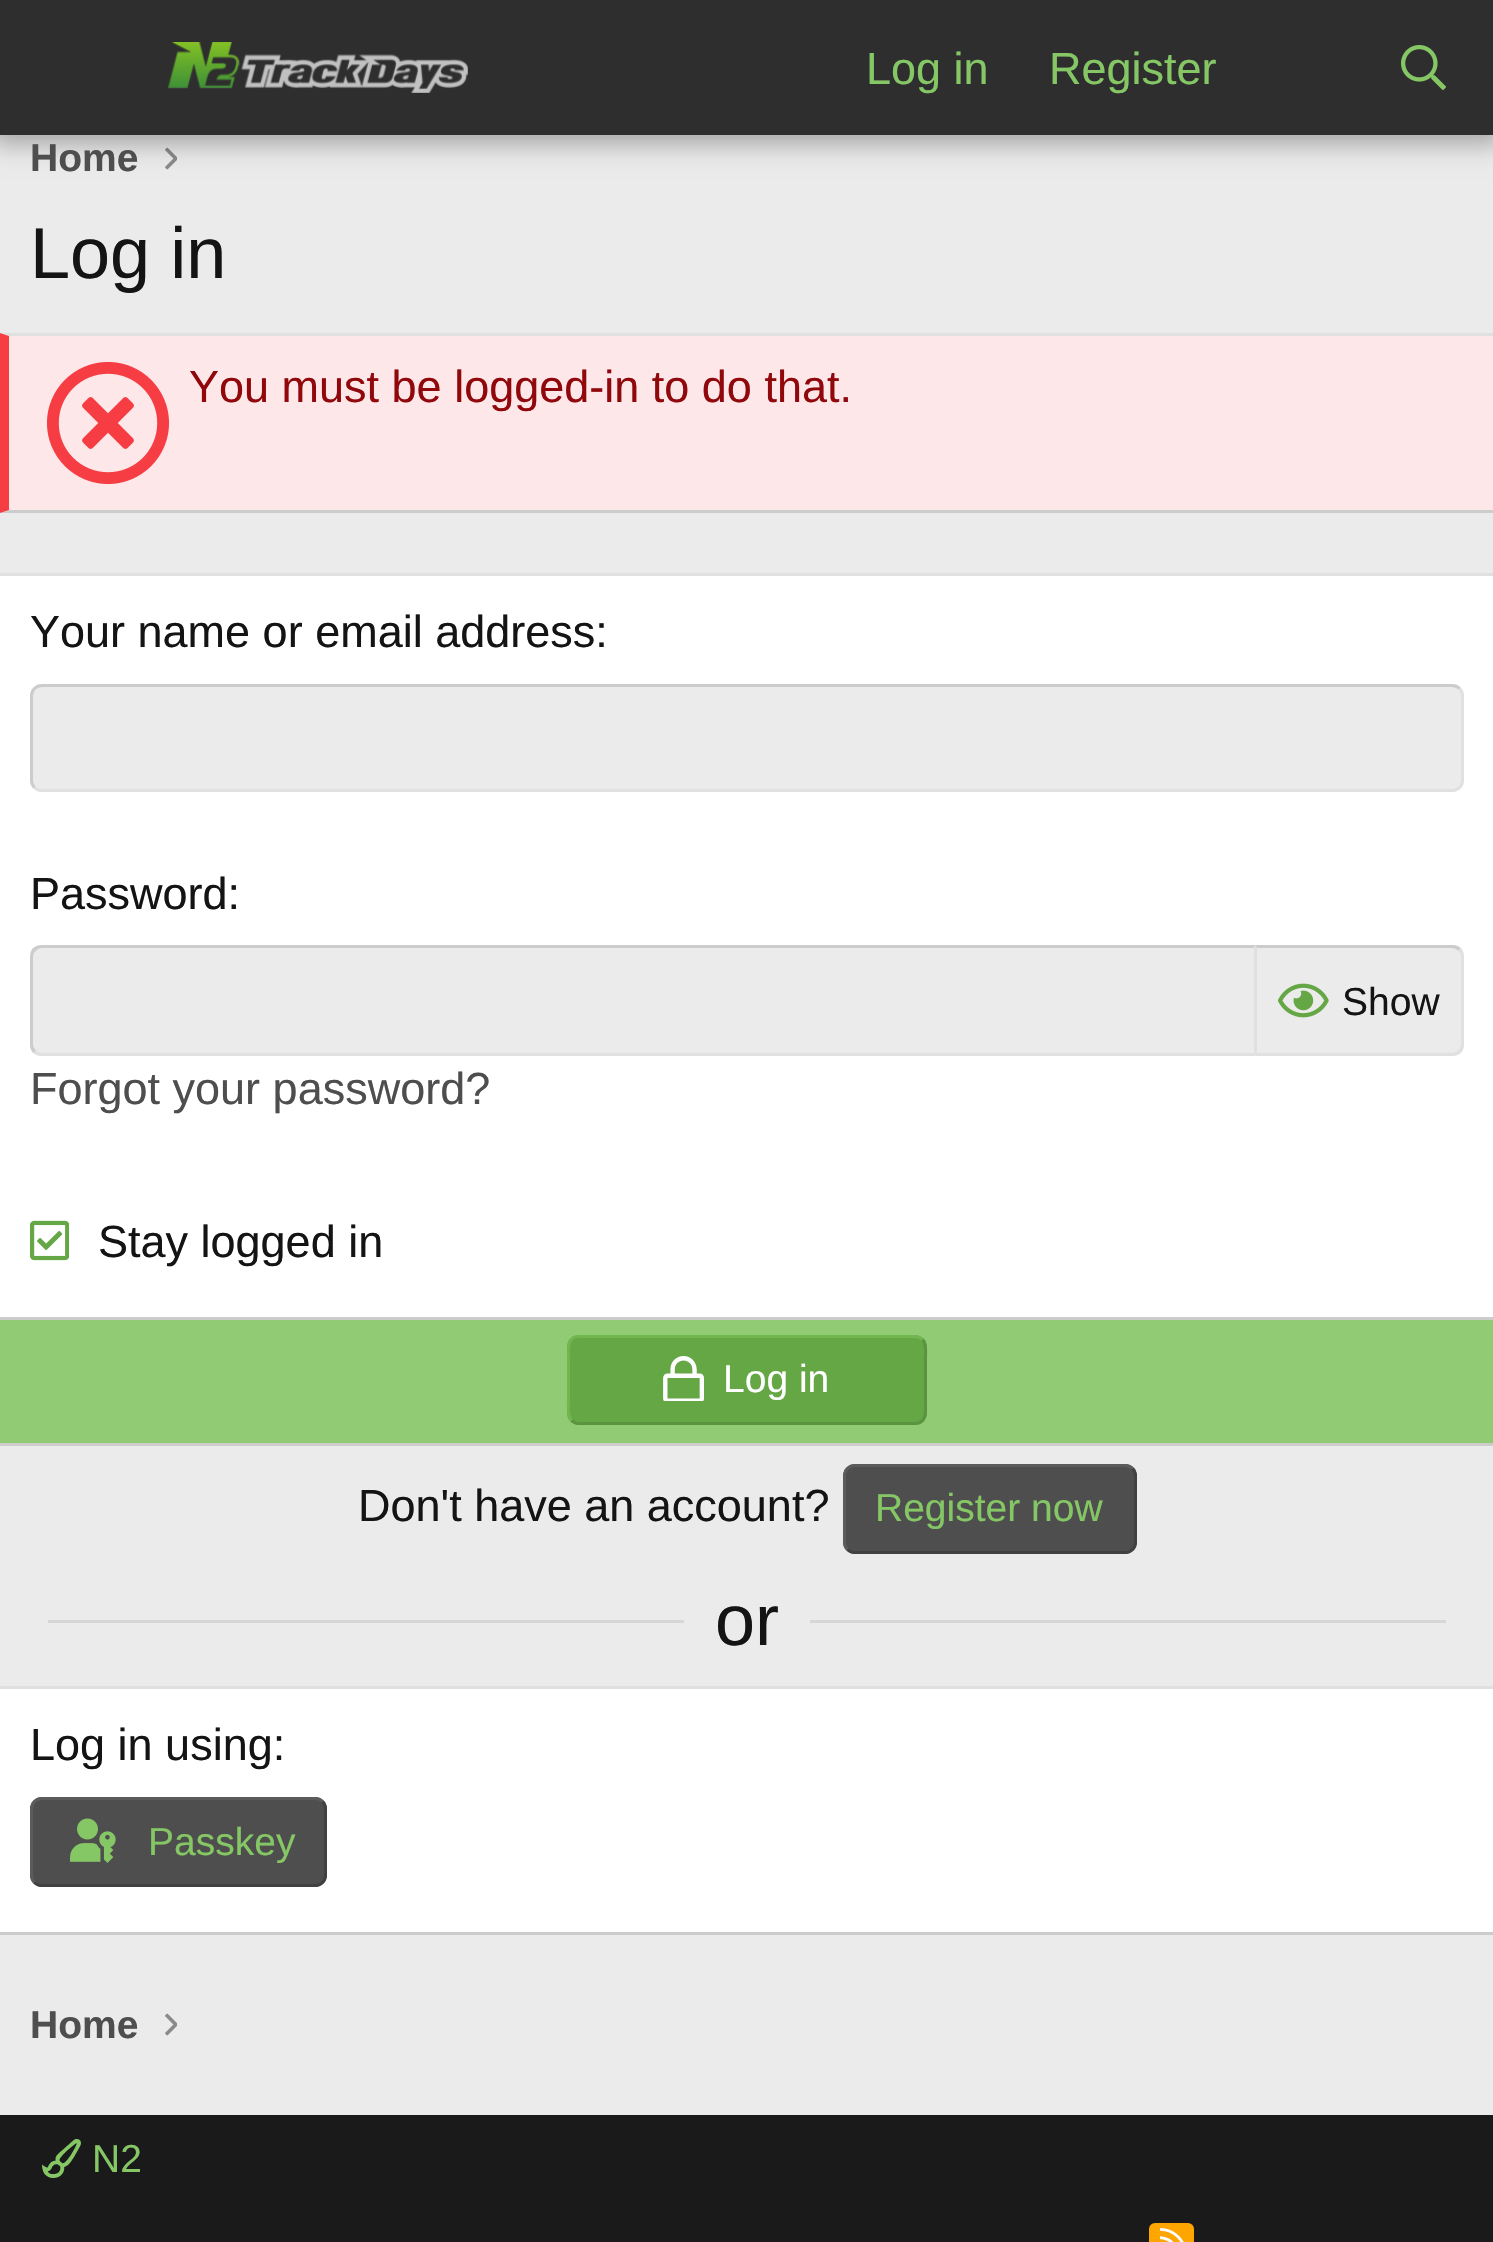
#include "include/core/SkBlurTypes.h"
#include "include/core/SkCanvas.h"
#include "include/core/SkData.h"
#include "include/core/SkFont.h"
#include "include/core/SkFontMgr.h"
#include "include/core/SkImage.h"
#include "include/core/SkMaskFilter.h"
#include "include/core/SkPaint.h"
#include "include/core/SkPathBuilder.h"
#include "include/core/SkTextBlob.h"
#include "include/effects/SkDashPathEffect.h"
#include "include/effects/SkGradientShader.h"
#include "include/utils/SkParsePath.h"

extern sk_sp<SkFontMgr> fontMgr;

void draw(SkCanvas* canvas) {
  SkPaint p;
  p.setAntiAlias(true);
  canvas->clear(SkColorSetRGB(235, 235, 235));
  canvas->drawImageRect(SkImages::DeferredFromEncodedData(SkData::MakeFromFileName("images/3.png")), SkRect::MakeLTRB(165, 147, 177, 170), SkSamplingOptions());
  p.setColor(SkColorSetARGB(77, 0, 0, 0));
  p.setMaskFilter(SkMaskFilter::MakeBlur(kNormal_SkBlurStyle, 12));
  canvas->drawRect(SkRect::MakeLTRB(-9, -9, 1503, 144), p);
  p.setMaskFilter(nullptr);
  p.setColor(SkColorSetRGB(46, 46, 46));
  canvas->drawRect(SkRect::MakeLTRB(0, 0, 1493, 135), p);
  canvas->drawImageRect(SkImages::DeferredFromEncodedData(SkData::MakeFromFileName("images/1.png")), SkRect::MakeLTRB(167, 42, 468, 93), SkSamplingOptions());
  canvas->drawImageRect(SkImages::DeferredFromEncodedData(SkData::MakeFromFileName("images/2.png")), SkRect::MakeLTRB(1401, 45, 1446, 90), SkSamplingOptions());
  p.setColor(SkColorSetRGB(254, 231, 232));
  canvas->drawRect(SkRect::MakeLTRB(0, 333, 1493, 513), p);
  p.setColor(SkColorSetRGB(224, 224, 224));
  canvas->drawPath(SkPathBuilder().moveTo(0, 333).lineTo(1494, 333).lineTo(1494, 336).lineTo(9, 336).close().detach(), p);
  p.setColor(SkColorSetRGB(204, 204, 204));
  canvas->drawPath(SkPathBuilder().moveTo(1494, 513).lineTo(0, 513).lineTo(9, 510).lineTo(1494, 510).close().detach(), p);
  p.setColor(SkColorSetRGB(245, 61, 67));
  canvas->drawPath(SkPathBuilder().moveTo(0, 513).lineTo(0, 333).lineTo(9, 336).lineTo(9, 510).close().detach(), p);
  canvas->drawImageRect(SkImages::DeferredFromEncodedData(SkData::MakeFromFileName("images/4.png")), SkRect::MakeLTRB(47, 362, 169, 484), SkSamplingOptions());
  p.setColor(SK_ColorWHITE);
  canvas->drawRect(SkRect::MakeLTRB(0, 576, 1493, 1317), p);
  p.setColor(SkColorSetRGB(224, 224, 224));
  canvas->drawRect(SkRect::MakeLTRB(0, 573, 1493, 576), p);
  p.setColor(SkColorSetRGB(204, 204, 204));
  canvas->drawRect(SkRect::MakeLTRB(0, 1443, 1493, 1446), p);
  p.setColor(SkColorSetRGB(235, 235, 235));
  canvas->drawRoundRect(SkRect::MakeLTRB(30, 684, 1464, 792), 12, 12, p);
  p.setStyle(SkPaint::kStroke_Style);
  p.setStrokeWidth(3);
  p.setColor(SkColorSetRGB(224, 224, 224));
  canvas->drawPath(SkPathBuilder().moveTo(1459.5f, 688.5f).cubicTo(1461.5f, 690.5f, 1462.5f, 693, 1462.5f, 696).lineTo(1462.5f, 780).cubicTo(1462.5f, 783, 1461.5f, 785.5f, 1459.5f, 787.5f).cubicTo(1457.5f, 789.5f, 1455, 790.5f, 1452, 790.5f).lineTo(42, 790.5f).cubicTo(39, 790.5f, 36.5f, 789.5f, 34.5f, 787.5f).detach(), p);
  p.setColor(SkColorSetRGB(204, 204, 204));
  canvas->drawPath(SkPathBuilder().moveTo(34.5f, 787.5f).cubicTo(32.5f, 785.5f, 31.5f, 783, 31.5f, 780).lineTo(31.5f, 696).cubicTo(31.5f, 693, 32.5f, 690.5f, 34.5f, 688.5f).cubicTo(36.5f, 686.5f, 39, 685.5f, 42, 685.5f).lineTo(1452, 685.5f).cubicTo(1455, 685.5f, 1457.5f, 686.5f, 1459.5f, 688.5f).detach(), p);
  p.setStyle(SkPaint::kFill_Style);
  p.setColor(SkColorSetRGB(235, 235, 235));
  canvas->drawPath(SkPathBuilder().moveTo(42, 945).lineTo(1254, 945).lineTo(1254, 1056).lineTo(42, 1056).cubicTo(35.5f, 1056, 30, 1050.5f, 30, 1044).lineTo(30, 957).cubicTo(30, 950.5f, 35.5f, 945, 42, 945).close().detach(), p);
  p.setColor(SkColorSetRGB(204, 204, 204));
  canvas->drawPath(SkPathBuilder().moveTo(42, 945).cubicTo(38, 945, 36, 946, 33, 948).lineTo(36, 951).cubicTo(37, 949, 40, 948, 42, 948).lineTo(1254, 948).lineTo(1254, 945).close().detach(), p);
  p.setColor(SkColorSetRGB(224, 224, 224));
  canvas->drawPath(SkPathBuilder().moveTo(1254, 1056).lineTo(1254, 1053).lineTo(42, 1053).cubicTo(40, 1053, 37, 1052, 36, 1050).lineTo(33, 1053).cubicTo(36, 1055, 38, 1056, 42, 1056).close().detach(), p);
  p.setColor(SkColorSetRGB(204, 204, 204));
  canvas->drawPath(SkPathBuilder().moveTo(30, 957).lineTo(30, 1044).cubicTo(30, 1048, 31, 1050, 33, 1053).lineTo(36, 1050).cubicTo(34, 1049, 33, 1046, 33, 1044).lineTo(33, 957).cubicTo(33, 954, 34, 952, 36, 951).lineTo(33, 948).cubicTo(31, 950, 30, 954, 30, 957).close().detach(), p);
  p.setColor(SkColorSetRGB(235, 235, 235));
  canvas->drawPath(SkPathBuilder().moveTo(1254, 945).lineTo(1452, 945).cubicTo(1458.5f, 945, 1464, 950.5f, 1464, 957).lineTo(1464, 1044).cubicTo(1464, 1050.5f, 1458.5f, 1056, 1452, 1056).lineTo(1254, 1056).close().detach(), p);
  p.setColor(SkColorSetRGB(204, 204, 204));
  canvas->drawPath(SkPathBuilder().moveTo(1254, 945).lineTo(1257, 948).lineTo(1452, 948).cubicTo(1454, 948, 1457, 949, 1458, 951).lineTo(1461, 948).cubicTo(1458, 946, 1456, 945, 1452, 945).close().detach(), p);
  p.setColor(SkColorSetRGB(224, 224, 224));
  canvas->drawPath(SkPathBuilder().moveTo(1464, 1044).lineTo(1464, 957).cubicTo(1464, 954, 1463, 950, 1461, 948).lineTo(1458, 951).cubicTo(1460, 952, 1461, 954, 1461, 957).lineTo(1461, 1044).cubicTo(1461, 1046, 1460, 1049, 1458, 1050).lineTo(1461, 1053).cubicTo(1463, 1050, 1464, 1048, 1464, 1044).close().detach(), p);
  canvas->drawPath(SkPathBuilder().moveTo(1452, 1056).cubicTo(1456, 1056, 1458, 1055, 1461, 1053).lineTo(1458, 1050).cubicTo(1457, 1052, 1454, 1053, 1452, 1053).lineTo(1257, 1053).lineTo(1254, 1056).close().detach(), p);
  canvas->drawPath(SkPathBuilder().moveTo(1254, 945).lineTo(1254, 1056).lineTo(1257, 1053).lineTo(1257, 948).close().detach(), p);
  canvas->drawImageRect(SkImages::DeferredFromEncodedData(SkData::MakeFromFileName("images/5.png")), SkRect::MakeLTRB(1278, 983, 1329, 1018), SkSamplingOptions());
  canvas->drawImageRect(SkImages::DeferredFromEncodedData(SkData::MakeFromFileName("images/6.png")), SkRect::MakeLTRB(30, 1220, 69, 1261), SkSamplingOptions());
  p.setColor(SkColorSetRGB(145, 204, 116));
  canvas->drawRect(SkRect::MakeLTRB(0, 1320, 1493, 1443), p);
  p.setColor(SkColorSetRGB(204, 204, 204));
  canvas->drawRect(SkRect::MakeLTRB(0, 1317, 1493, 1320), p);
  p.setColor(SkColorSetRGB(101, 166, 69));
  canvas->drawRoundRect(SkRect::MakeLTRB(567, 1335, 927, 1425), 12, 12, p);
  p.setStyle(SkPaint::kStroke_Style);
  p.setColor(SkColorSetRGB(90, 148, 62));
  canvas->drawPath(SkPathBuilder().moveTo(922.5f, 1339.5f).cubicTo(927, 1344.5f, 925.5f, 1352.5f, 925.5f, 1358).lineTo(925.5f, 1402).cubicTo(925.5f, 1410, 927.5f, 1423.5f, 915, 1423.5f).lineTo(578, 1423.5f).cubicTo(575.5f, 1423, 573.5f, 1422, 571.5f, 1420.5f).detach(), p);
  p.setColor(SkColorSetRGB(113, 182, 79));
  canvas->drawPath(SkPathBuilder().moveTo(571.5f, 1420.5f).cubicTo(567, 1415.5f, 568.5f, 1407.5f, 568.5f, 1402).lineTo(568.5f, 1358).cubicTo(568.5f, 1350, 566.5f, 1336.5f, 579, 1336.5f).lineTo(916, 1336.5f).cubicTo(918.5f, 1337, 920.5f, 1338, 922.5f, 1339.5f).detach(), p);
  canvas->drawImageRect(SkImages::DeferredFromEncodedData(SkData::MakeFromFileName("images/7.png")), SkRect::MakeLTRB(663, 1356, 704, 1401), SkSamplingOptions());
  p.setStyle(SkPaint::kFill_Style);
  p.setColor(SkColorSetRGB(78, 78, 78));
  canvas->drawRoundRect(SkRect::MakeLTRB(843, 1464, 1137, 1554), 12, 12, p);
  p.setStyle(SkPaint::kStroke_Style);
  p.setColor(SkColorSetRGB(65, 65, 65));
  canvas->drawPath(SkPathBuilder().moveTo(1132.5f, 1468.5f).cubicTo(1134.5f, 1470.5f, 1135.5f, 1473, 1135.5f, 1476).lineTo(1135.5f, 1542).cubicTo(1135.5f, 1545, 1134.5f, 1547.5f, 1132.5f, 1549.5f).cubicTo(1130.5f, 1551.5f, 1128, 1552.5f, 1125, 1552.5f).lineTo(855, 1552.5f).cubicTo(852, 1552.5f, 849.5f, 1551.5f, 847.5f, 1549.5f).detach(), p);
  p.setColor(SkColorSetRGB(91, 91, 91));
  canvas->drawPath(SkPathBuilder().moveTo(847.5f, 1549.5f).cubicTo(845.5f, 1547.5f, 844.5f, 1545, 844.5f, 1542).lineTo(844.5f, 1476).cubicTo(844.5f, 1473, 845.5f, 1470.5f, 847.5f, 1468.5f).cubicTo(849.5f, 1466.5f, 852, 1465.5f, 855, 1465.5f).lineTo(1125, 1465.5f).cubicTo(1128, 1465.5f, 1130.5f, 1466.5f, 1132.5f, 1468.5f).detach(), p);
  p.setStyle(SkPaint::kFill_Style);
  p.setColor(SkColorSetRGB(214, 214, 214));
  canvas->drawRect(SkRect::MakeLTRB(48, 1620, 684, 1623), p);
  canvas->drawRect(SkRect::MakeLTRB(810, 1620, 1446, 1623), p);
  p.setColor(SK_ColorWHITE);
  canvas->drawRect(SkRect::MakeLTRB(0, 1689, 1493, 1932), p);
  p.setColor(SkColorSetRGB(224, 224, 224));
  canvas->drawRect(SkRect::MakeLTRB(0, 1686, 1493, 1689), p);
  p.setColor(SkColorSetRGB(204, 204, 204));
  canvas->drawRect(SkRect::MakeLTRB(0, 1932, 1493, 1935), p);
  p.setColor(SkColorSetRGB(78, 78, 78));
  canvas->drawRoundRect(SkRect::MakeLTRB(30, 1797, 327, 1887), 12, 12, p);
  p.setStyle(SkPaint::kStroke_Style);
  p.setColor(SkColorSetRGB(65, 65, 65));
  canvas->drawPath(SkPathBuilder().moveTo(322.5f, 1801.5f).cubicTo(324.5f, 1803.5f, 325.5f, 1806, 325.5f, 1809).lineTo(325.5f, 1875).cubicTo(325.5f, 1878, 324.5f, 1880.5f, 322.5f, 1882.5f).cubicTo(320.5f, 1884.5f, 318, 1885.5f, 315, 1885.5f).lineTo(42, 1885.5f).cubicTo(39, 1885.5f, 36.5f, 1884.5f, 34.5f, 1882.5f).detach(), p);
  p.setColor(SkColorSetRGB(91, 91, 91));
  canvas->drawPath(SkPathBuilder().moveTo(34.5f, 1882.5f).cubicTo(32.5f, 1880.5f, 31.5f, 1878, 31.5f, 1875).lineTo(31.5f, 1809).cubicTo(31.5f, 1806, 32.5f, 1803.5f, 34.5f, 1801.5f).cubicTo(36.5f, 1799.5f, 39, 1798.5f, 42, 1798.5f).lineTo(315, 1798.5f).cubicTo(318, 1798.5f, 320.5f, 1799.5f, 322.5f, 1801.5f).detach(), p);
  canvas->drawImageRect(SkImages::DeferredFromEncodedData(SkData::MakeFromFileName("images/8.png")), SkRect::MakeLTRB(70, 1818, 116, 1863), SkSamplingOptions());
  canvas->drawImageRect(SkImages::DeferredFromEncodedData(SkData::MakeFromFileName("images/3.png")), SkRect::MakeLTRB(165, 2013, 177, 2036), SkSamplingOptions());
  p.setStyle(SkPaint::kFill_Style);
  p.setColor(SkColorSetRGB(26, 26, 26));
  canvas->drawRect(SkRect::MakeLTRB(0, 2115, 1493, 2242), p);
  canvas->drawImageRect(SkImages::DeferredFromEncodedData(SkData::MakeFromFileName("images/9.png")), SkRect::MakeLTRB(42, 2139, 81, 2178), SkSamplingOptions());
  p.setColor(SkColorSetRGB(255, 165, 0));
  canvas->drawRoundRect(SkRect::MakeLTRB(1149, 2223, 1194, 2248), 6, 6, p);
  canvas->drawImageRect(SkImages::DeferredFromEncodedData(SkData::MakeFromFileName("images/10.png")), SkRect::MakeLTRB(1159, 2228, 1184, 2242), SkSamplingOptions());
  SkFont font1(fontMgr->matchFamilyStyle("Liberation Sans", SkFontStyle::Normal()), 45);
  font1.setSubpixel(true);
  p.setColor(SkColorSetRGB(133, 198, 101));
  canvas->drawString("Log in", 866, 84, font1, p);
  canvas->drawString("Register", 1049, 84, font1, p);
  SkFont font2(fontMgr->matchFamilyStyle("Liberation Sans", SkFontStyle::Bold()), 39);
  font2.setSubpixel(true);
  p.setColor(SkColorSetRGB(78, 78, 78));
  canvas->drawString("Home", 30, 171, font2, p);
  SkFont font3(fontMgr->matchFamilyStyle("Liberation Sans", SkFontStyle::Normal()), 72);
  font3.setSubpixel(true);
  p.setColor(SkColorSetRGB(20, 20, 20));
  canvas->drawString("Log in", 30, 278, font3, p);
  p.setColor(SkColorSetRGB(145, 8, 12));
  canvas->drawString("You must be logged-in to do that.", 189, 402, font1, p);
  p.setColor(SkColorSetRGB(20, 20, 20));
  canvas->drawString("Your name or email address:", 30, 647, font1, p);
  canvas->drawString("Password:", 30, 909, font1, p);
  SkFont font4(fontMgr->matchFamilyStyle("Liberation Sans", SkFontStyle::Normal()), 39);
  font4.setSubpixel(true);
  canvas->drawString("Show", 1342, 1015, font4, p);
  p.setColor(SkColorSetRGB(78, 78, 78));
  canvas->drawString("Forgot your password?", 30, 1104, font1, p);
  p.setColor(SkColorSetRGB(20, 20, 20));
  canvas->drawString("Stay logged in", 98, 1257, font1, p);
  p.setColor(SK_ColorWHITE);
  canvas->drawString("Log in", 723, 1392, font4, p);
  p.setColor(SkColorSetRGB(20, 20, 20));
  canvas->drawString("Don't have an account?", 358, 1521, font1, p);
  p.setColor(SkColorSetRGB(133, 198, 101));
  canvas->drawString("Register now", 875, 1521, font4, p);
  p.setColor(SkColorSetRGB(20, 20, 20));
  canvas->drawString("or", 715, 1645, font3, p);
  canvas->drawString("Log in using:", 30, 1760, font1, p);
  p.setColor(SkColorSetRGB(133, 198, 101));
  canvas->drawString("Passkey", 148, 1855, font4, p);
  p.setColor(SkColorSetRGB(78, 78, 78));
  canvas->drawString("Home", 30, 2038, font2, p);
  p.setColor(SkColorSetRGB(133, 198, 101));
  canvas->drawString("N2", 92, 2172, font4, p);
}
